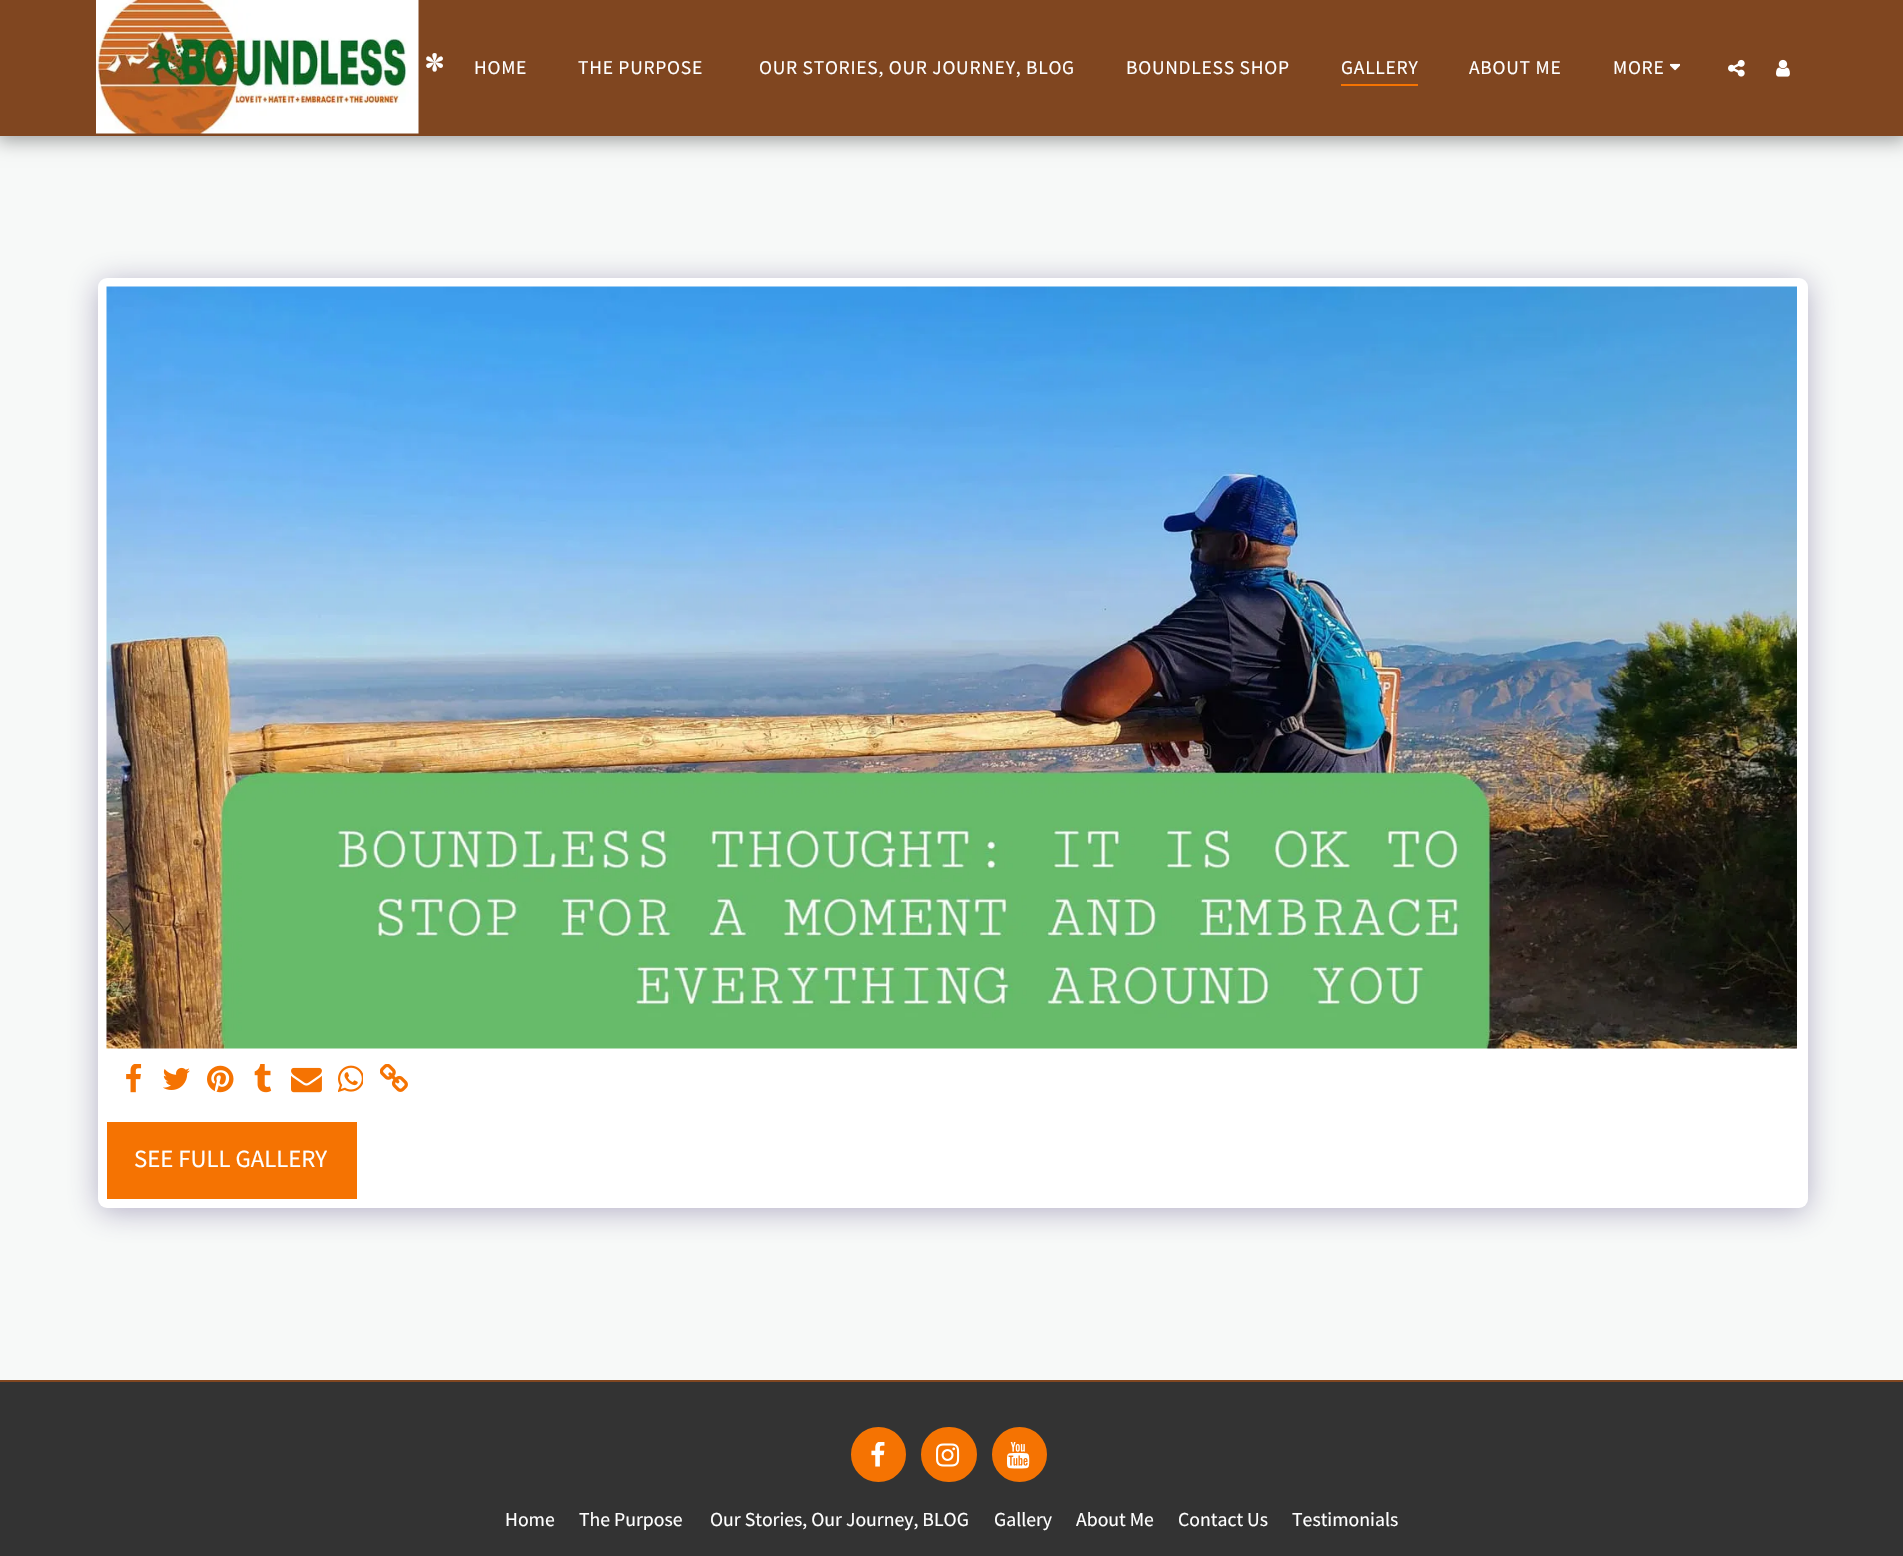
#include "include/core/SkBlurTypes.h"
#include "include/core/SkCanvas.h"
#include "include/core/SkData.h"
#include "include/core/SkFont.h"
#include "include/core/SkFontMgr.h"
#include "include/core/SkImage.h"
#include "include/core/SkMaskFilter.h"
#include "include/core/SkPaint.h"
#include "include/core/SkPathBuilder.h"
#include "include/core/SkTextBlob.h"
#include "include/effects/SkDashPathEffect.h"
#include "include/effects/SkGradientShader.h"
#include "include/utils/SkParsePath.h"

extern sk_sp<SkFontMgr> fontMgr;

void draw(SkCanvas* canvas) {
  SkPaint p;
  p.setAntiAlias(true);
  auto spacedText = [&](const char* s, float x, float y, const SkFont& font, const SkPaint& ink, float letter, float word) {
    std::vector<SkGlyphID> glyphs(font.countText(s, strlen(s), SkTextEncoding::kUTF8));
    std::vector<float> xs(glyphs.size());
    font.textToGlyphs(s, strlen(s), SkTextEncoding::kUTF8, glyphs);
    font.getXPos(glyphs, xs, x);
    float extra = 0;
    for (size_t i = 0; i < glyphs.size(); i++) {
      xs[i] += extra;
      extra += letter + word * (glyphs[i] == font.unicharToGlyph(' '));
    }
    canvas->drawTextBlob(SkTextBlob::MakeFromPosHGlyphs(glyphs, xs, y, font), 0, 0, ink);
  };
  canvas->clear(SkColorSetRGB(247, 249, 248));
  p.setColor(SkColorSetARGB(89, 0, 0, 0));
  p.setMaskFilter(SkMaskFilter::MakeBlur(kNormal_SkBlurStyle, 9));
  canvas->drawRect(SkRect::MakeLTRB(-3, 0, 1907, 141), p);
  p.setMaskFilter(nullptr);
  p.setColor(SkColorSetRGB(128, 70, 32));
  canvas->drawRect(SkRect::MakeLTRB(0, 0, 1903, 136), p);
  canvas->drawImageRect(SkImages::DeferredFromEncodedData(SkData::MakeFromFileName("images/1.png")), SkRect::MakeLTRB(96, 0, 419, 134), SkSamplingOptions());
  p.setColor(SkColorSetRGB(245, 115, 2));
  canvas->drawRect(SkRect::MakeLTRB(1341, 84, 1418, 86), p);
  canvas->drawImageRect(SkImages::DeferredFromEncodedData(SkData::MakeFromFileName("images/2.png")), SkRect::MakeLTRB(1670, 63, 1680, 71), SkSamplingOptions());
  canvas->drawImageRect(SkImages::DeferredFromEncodedData(SkData::MakeFromFileName("images/3.png")), SkRect::MakeLTRB(1728, 59, 1745, 77), SkSamplingOptions());
  canvas->drawImageRect(SkImages::DeferredFromEncodedData(SkData::MakeFromFileName("images/4.png")), SkRect::MakeLTRB(1776, 59, 1790, 77), SkSamplingOptions());
  p.setColor(SkColorSetARGB(102, 77, 63, 122));
  p.setMaskFilter(SkMaskFilter::MakeBlur(kNormal_SkBlurStyle, 15));
  canvas->drawRoundRect(SkRect::MakeLTRB(98, 282, 1808, 1212), 9, 9, p);
  p.setMaskFilter(nullptr);
  p.setColor(SK_ColorWHITE);
  canvas->drawRoundRect(SkRect::MakeLTRB(98, 278, 1808, 1208), 9, 9, p);
  canvas->drawImageRect(SkImages::DeferredFromEncodedData(SkData::MakeFromFileName("images/5.png")), SkRect::MakeLTRB(106, 286, 1797, 1049), SkSamplingOptions());
  canvas->drawImageRect(SkImages::DeferredFromEncodedData(SkData::MakeFromFileName("images/6.png")), SkRect::MakeLTRB(126, 1064, 142, 1093), SkSamplingOptions());
  canvas->drawImageRect(SkImages::DeferredFromEncodedData(SkData::MakeFromFileName("images/7.png")), SkRect::MakeLTRB(163, 1067, 190, 1090), SkSamplingOptions());
  canvas->drawImageRect(SkImages::DeferredFromEncodedData(SkData::MakeFromFileName("images/8.png")), SkRect::MakeLTRB(207, 1065, 234, 1093), SkSamplingOptions());
  canvas->drawImageRect(SkImages::DeferredFromEncodedData(SkData::MakeFromFileName("images/9.png")), SkRect::MakeLTRB(254, 1064, 272, 1093), SkSamplingOptions());
  canvas->drawImageRect(SkImages::DeferredFromEncodedData(SkData::MakeFromFileName("images/10.png")), SkRect::MakeLTRB(291, 1067, 322, 1093), SkSamplingOptions());
  canvas->drawImageRect(SkImages::DeferredFromEncodedData(SkData::MakeFromFileName("images/11.png")), SkRect::MakeLTRB(338, 1065, 363, 1093), SkSamplingOptions());
  canvas->drawImageRect(SkImages::DeferredFromEncodedData(SkData::MakeFromFileName("images/12.png")), SkRect::MakeLTRB(380, 1064, 408, 1092), SkSamplingOptions());
  p.setColor(SkColorSetRGB(245, 115, 2));
  canvas->drawRect(SkRect::MakeLTRB(107, 1122, 357, 1199), p);
  p.setColor(SkColorSetRGB(128, 70, 32));
  canvas->drawRect(SkRect::MakeLTRB(0, 1380, 1903, 1382), p);
  p.setColor(SkColorSetRGB(51, 51, 51));
  canvas->drawRect(SkRect::MakeLTRB(0, 1382, 1903, 1556), p);
  p.setColor(SkColorSetRGB(245, 115, 2));
  canvas->drawCircle(878.5f, 1454.5f, 26.5f, p);
  p.setStyle(SkPaint::kStroke_Style);
  p.setStrokeWidth(2);
  canvas->drawCircle(878.5f, 1454.5f, 26.5f, p);
  canvas->drawImageRect(SkImages::DeferredFromEncodedData(SkData::MakeFromFileName("images/13.png")), SkRect::MakeLTRB(871, 1442, 885, 1467), SkSamplingOptions());
  p.setStyle(SkPaint::kFill_Style);
  canvas->drawRoundRect(SkRect::MakeLTRB(922, 1428, 976, 1481), 26.5f, 26.5f, p);
  p.setStyle(SkPaint::kStroke_Style);
  canvas->drawRoundRect(SkRect::MakeLTRB(922, 1428, 976, 1481), 26.5f, 26.5f, p);
  canvas->drawImageRect(SkImages::DeferredFromEncodedData(SkData::MakeFromFileName("images/14.png")), SkRect::MakeLTRB(936, 1443, 960, 1467), SkSamplingOptions());
  p.setStyle(SkPaint::kFill_Style);
  canvas->drawCircle(1019.5f, 1454.5f, 26.5f, p);
  p.setStyle(SkPaint::kStroke_Style);
  canvas->drawCircle(1019.5f, 1454.5f, 26.5f, p);
  canvas->drawImageRect(SkImages::DeferredFromEncodedData(SkData::MakeFromFileName("images/15.png")), SkRect::MakeLTRB(1007, 1442, 1030, 1469), SkSamplingOptions());
  SkFont font1(fontMgr->matchFamilyStyle("Playfair Display", SkFontStyle::Bold()), 44);
  font1.setSubpixel(true);
  p.setStyle(SkPaint::kFill_Style);
  p.setColor(SK_ColorWHITE);
  spacedText("*", 424, 85, font1, p, 4, 0);
  SkFont font2(fontMgr->matchFamilyStyle("Source Sans Pro", SkFontStyle::Normal()), 19.5f);
  font2.setSubpixel(true);
  spacedText("HOME", 474, 74, font2, p, 0.75f, 0);
  spacedText("THE PURPOSE", 578, 74, font2, p, 0.75f, 0);
  spacedText("OUR STORIES, OUR JOURNEY, BLOG", 759, 74, font2, p, 0.75f, 0);
  spacedText("BOUNDLESS SHOP", 1126, 74, font2, p, 0.75f, 0);
  spacedText("GALLERY", 1341, 74, font2, p, 0.75f, 0);
  spacedText("ABOUT ME", 1469, 74, font2, p, 0.75f, 0);
  spacedText("MORE", 1613, 74, font2, p, 0.75f, 0);
  SkFont font3(fontMgr->matchFamilyStyle("Source Sans Pro", SkFontStyle::Normal()), 24.75f);
  font3.setSubpixel(true);
  canvas->drawString("SEE FULL GALLERY", 134, 1167, font3, p);
  SkFont font4(fontMgr->matchFamilyStyle("Source Sans Pro", SkFontStyle::Normal()), 19.75f);
  font4.setSubpixel(true);
  canvas->drawString("Home", 505, 1526, font4, p);
  canvas->drawString("The Purpose", 579, 1526, font4, p);
  canvas->drawString("Our Stories, Our Journey, BLOG", 710, 1526, font4, p);
  canvas->drawString("Gallery", 994, 1526, font4, p);
  canvas->drawString("About Me", 1076, 1526, font4, p);
  canvas->drawString("Contact Us", 1178, 1526, font4, p);
  canvas->drawString("Testimonials", 1292, 1526, font4, p);
}
